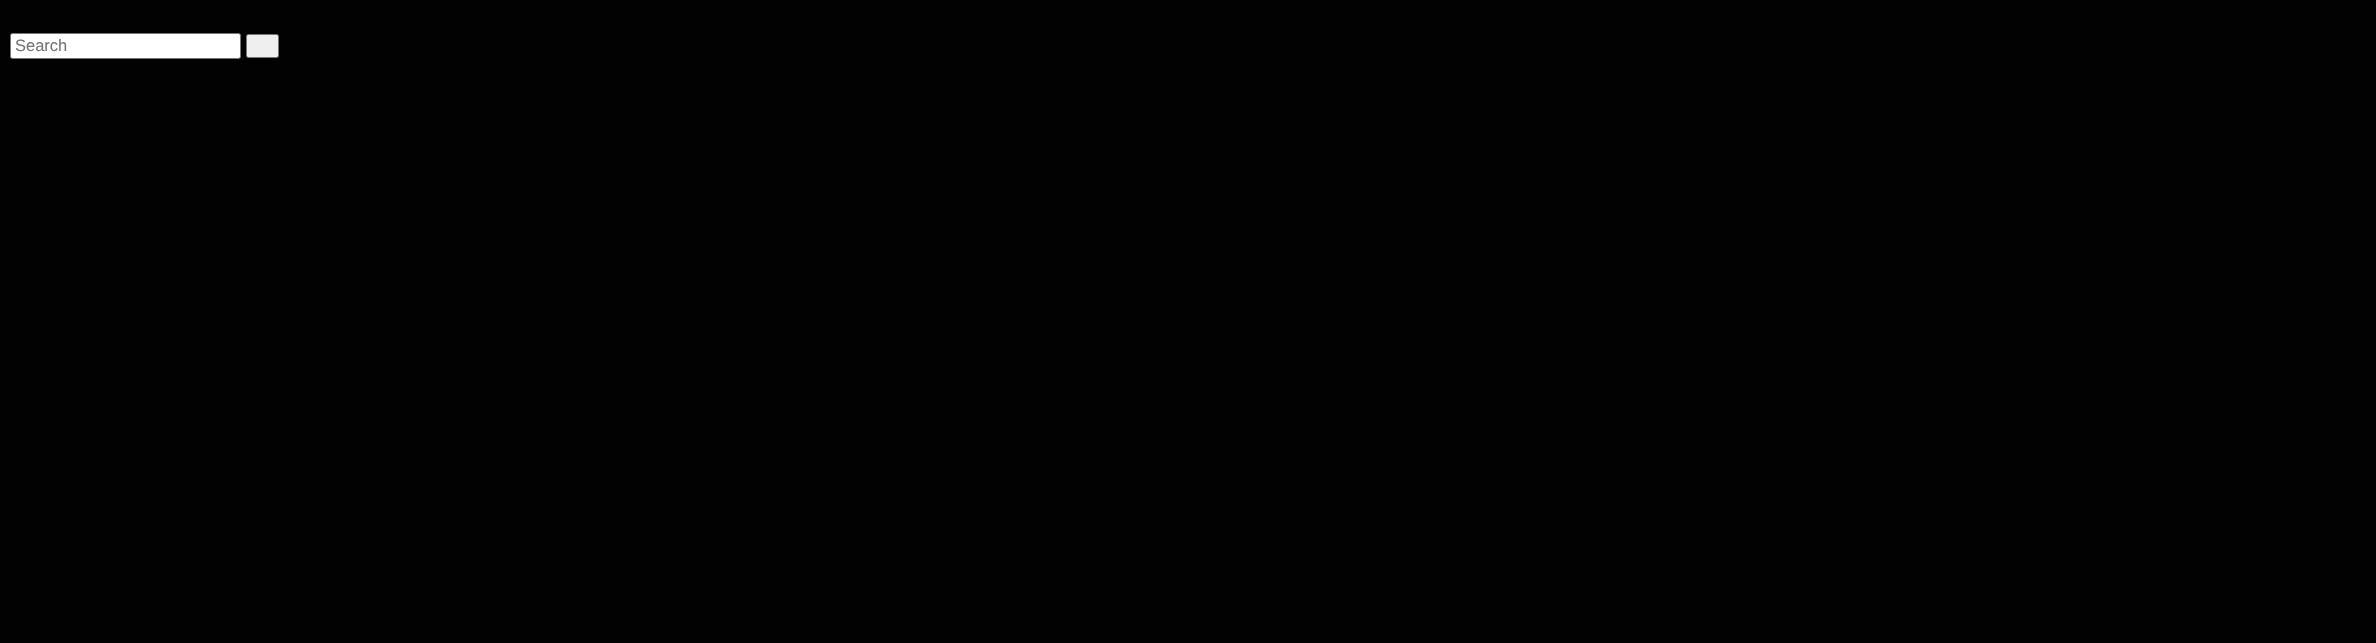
#include "include/core/SkBlurTypes.h"
#include "include/core/SkCanvas.h"
#include "include/core/SkData.h"
#include "include/core/SkFont.h"
#include "include/core/SkFontMgr.h"
#include "include/core/SkImage.h"
#include "include/core/SkMaskFilter.h"
#include "include/core/SkPaint.h"
#include "include/core/SkPathBuilder.h"
#include "include/core/SkTextBlob.h"
#include "include/effects/SkDashPathEffect.h"
#include "include/effects/SkGradientShader.h"
#include "include/utils/SkParsePath.h"

extern sk_sp<SkFontMgr> fontMgr;

void draw(SkCanvas* canvas) {
  SkPaint p;
  p.setAntiAlias(true);
  canvas->clear(SkColorSetRGB(2, 2, 2));
  p.setColor(SK_ColorWHITE);
  canvas->drawRoundRect(SkRect::MakeLTRB(10.5f, 33.5f, 240.5f, 58.5f), 2, 2, p);
  p.setStyle(SkPaint::kStroke_Style);
  p.setStrokeWidth(1);
  p.setColor(SkColorSetRGB(118, 118, 118));
  canvas->drawRoundRect(SkRect::MakeLTRB(10.5f, 33.5f, 240.5f, 58.5f), 2, 2, p);
  p.setStyle(SkPaint::kFill_Style);
  p.setColor(SkColorSetRGB(239, 239, 239));
  canvas->drawRoundRect(SkRect::MakeLTRB(246.5f, 34.5f, 278.5f, 57.5f), 2, 2, p);
  p.setStyle(SkPaint::kStroke_Style);
  p.setColor(SkColorSetRGB(118, 118, 118));
  canvas->drawRoundRect(SkRect::MakeLTRB(246.5f, 34.5f, 278.5f, 57.5f), 2, 2, p);
  SkFont font1(fontMgr->matchFamilyStyle("Liberation Sans", SkFontStyle::Normal()), 16.5f);
  font1.setSubpixel(true);
  p.setStyle(SkPaint::kFill_Style);
  p.setColor(SkColorSetRGB(117, 117, 117));
  canvas->drawString("Search", 15, 51, font1, p);
}
